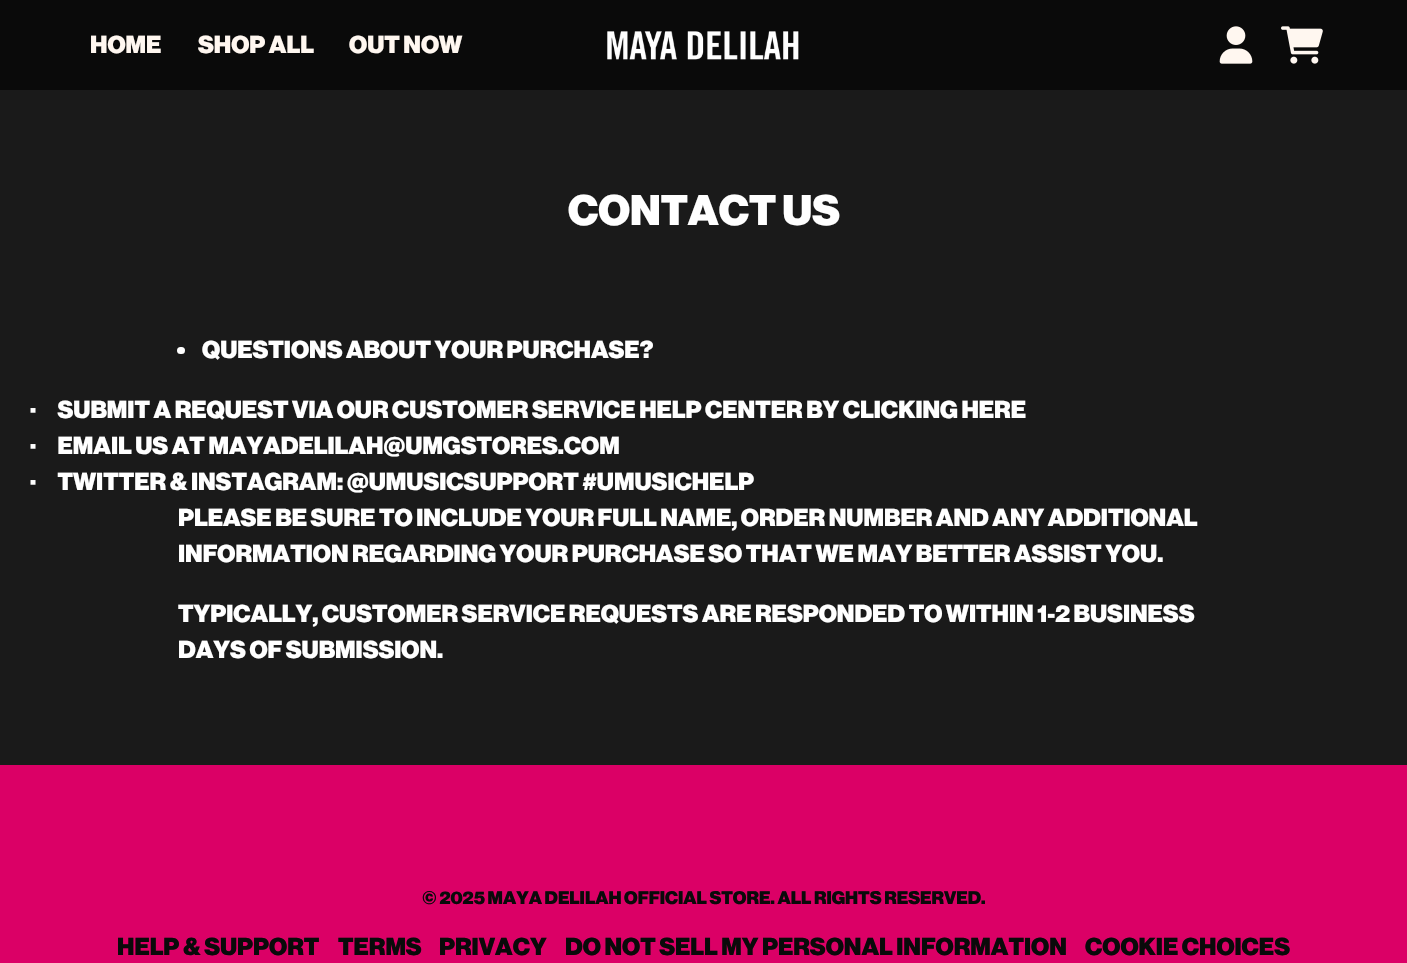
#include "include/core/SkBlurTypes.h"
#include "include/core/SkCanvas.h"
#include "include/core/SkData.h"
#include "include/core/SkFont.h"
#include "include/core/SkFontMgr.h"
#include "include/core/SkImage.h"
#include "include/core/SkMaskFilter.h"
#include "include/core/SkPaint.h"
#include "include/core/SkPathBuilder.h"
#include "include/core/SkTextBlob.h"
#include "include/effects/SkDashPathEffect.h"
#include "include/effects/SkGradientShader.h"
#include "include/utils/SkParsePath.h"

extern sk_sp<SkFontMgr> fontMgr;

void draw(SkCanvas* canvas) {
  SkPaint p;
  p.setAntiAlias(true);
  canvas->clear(SkColorSetRGB(26, 26, 26));
  p.setColor(SkColorSetRGB(10, 10, 10));
  canvas->drawRect(SkRect::MakeLTRB(0, 0, 1407, 90), p);
  canvas->drawImageRect(SkImages::DeferredFromEncodedData(SkData::MakeFromFileName("images/1.png")), SkRect::MakeLTRB(607, 31, 799, 60), SkSamplingOptions());
  canvas->drawImageRect(SkImages::DeferredFromEncodedData(SkData::MakeFromFileName("images/2.png")), SkRect::MakeLTRB(1219, 26, 1253, 64), SkSamplingOptions());
  canvas->drawImageRect(SkImages::DeferredFromEncodedData(SkData::MakeFromFileName("images/3.png")), SkRect::MakeLTRB(1281, 26, 1323, 64), SkSamplingOptions());
  p.setColor(SK_ColorWHITE);
  canvas->drawRoundRect(SkRect::MakeLTRB(177, 347, 185, 354), 3.5f, 3.5f, p);
  p.setColor(SkColorSetRGB(219, 0, 102));
  canvas->drawRect(SkRect::MakeLTRB(0, 765, 1407, 963), p);
  SkFont font1(fontMgr->matchFamilyStyle("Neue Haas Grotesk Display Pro", SkFontStyle(900, SkFontStyle::kNormal_Width, SkFontStyle::kUpright_Slant)), 24);
  font1.setSubpixel(true);
  p.setColor(SkColorSetRGB(255, 247, 240));
  canvas->drawString("HOME", 90, 53, font1, p);
  canvas->drawString("SHOP ALL", 198, 53, font1, p);
  canvas->drawString("OUT NOW", 349, 53, font1, p);
  SkFont font2(fontMgr->matchFamilyStyle("Neue Haas Grotesk Display Pro", SkFontStyle(900, SkFontStyle::kNormal_Width, SkFontStyle::kUpright_Slant)), 42);
  font2.setSubpixel(true);
  p.setColor(SK_ColorWHITE);
  canvas->drawString("CONTACT US", 568, 225, font2, p);
  canvas->drawString("QUESTIONS ABOUT YOUR PURCHASE?", 202, 358, font1, p);
  canvas->drawString("·      SUBMIT A REQUEST VIA OUR CUSTOMER SERVICE HELP CENTER BY CLICKING HERE", 30, 418, font1, p);
  canvas->drawString("·      EMAIL US AT MAYADELILAH@UMGSTORES.COM", 30, 454, font1, p);
  canvas->drawString("·      TWITTER & INSTAGRAM: @UMUSICSUPPORT #UMUSICHELP", 30, 490, font1, p);
  canvas->drawString("PLEASE BE SURE TO INCLUDE YOUR FULL NAME, ORDER NUMBER AND ANY ADDITIONAL", 178, 526, font1, p);
  canvas->drawString("INFORMATION REGARDING YOUR PURCHASE SO THAT WE MAY BETTER ASSIST YOU.", 178, 562, font1, p);
  canvas->drawString("TYPICALLY, CUSTOMER SERVICE REQUESTS ARE RESPONDED TO WITHIN 1-2 BUSINESS", 178, 622, font1, p);
  canvas->drawString("DAYS OF SUBMISSION.", 178, 658, font1, p);
  SkFont font3(fontMgr->matchFamilyStyle("Neue Haas Grotesk Display Pro", SkFontStyle(900, SkFontStyle::kNormal_Width, SkFontStyle::kUpright_Slant)), 18);
  font3.setSubpixel(true);
  p.setColor(SkColorSetRGB(10, 10, 10));
  canvas->drawString("© 2025 MAYA DELILAH OFFICIAL STORE. ALL RIGHTS RESERVED.", 422, 904, font3, p);
  canvas->drawString("HELP & SUPPORT", 117, 955, font1, p);
  canvas->drawString("TERMS", 338, 955, font1, p);
  canvas->drawString("PRIVACY", 439, 955, font1, p);
  canvas->drawString("DO NOT SELL MY PERSONAL INFORMATION", 565, 955, font1, p);
  canvas->drawString("COOKIE CHOICES", 1085, 955, font1, p);
}
